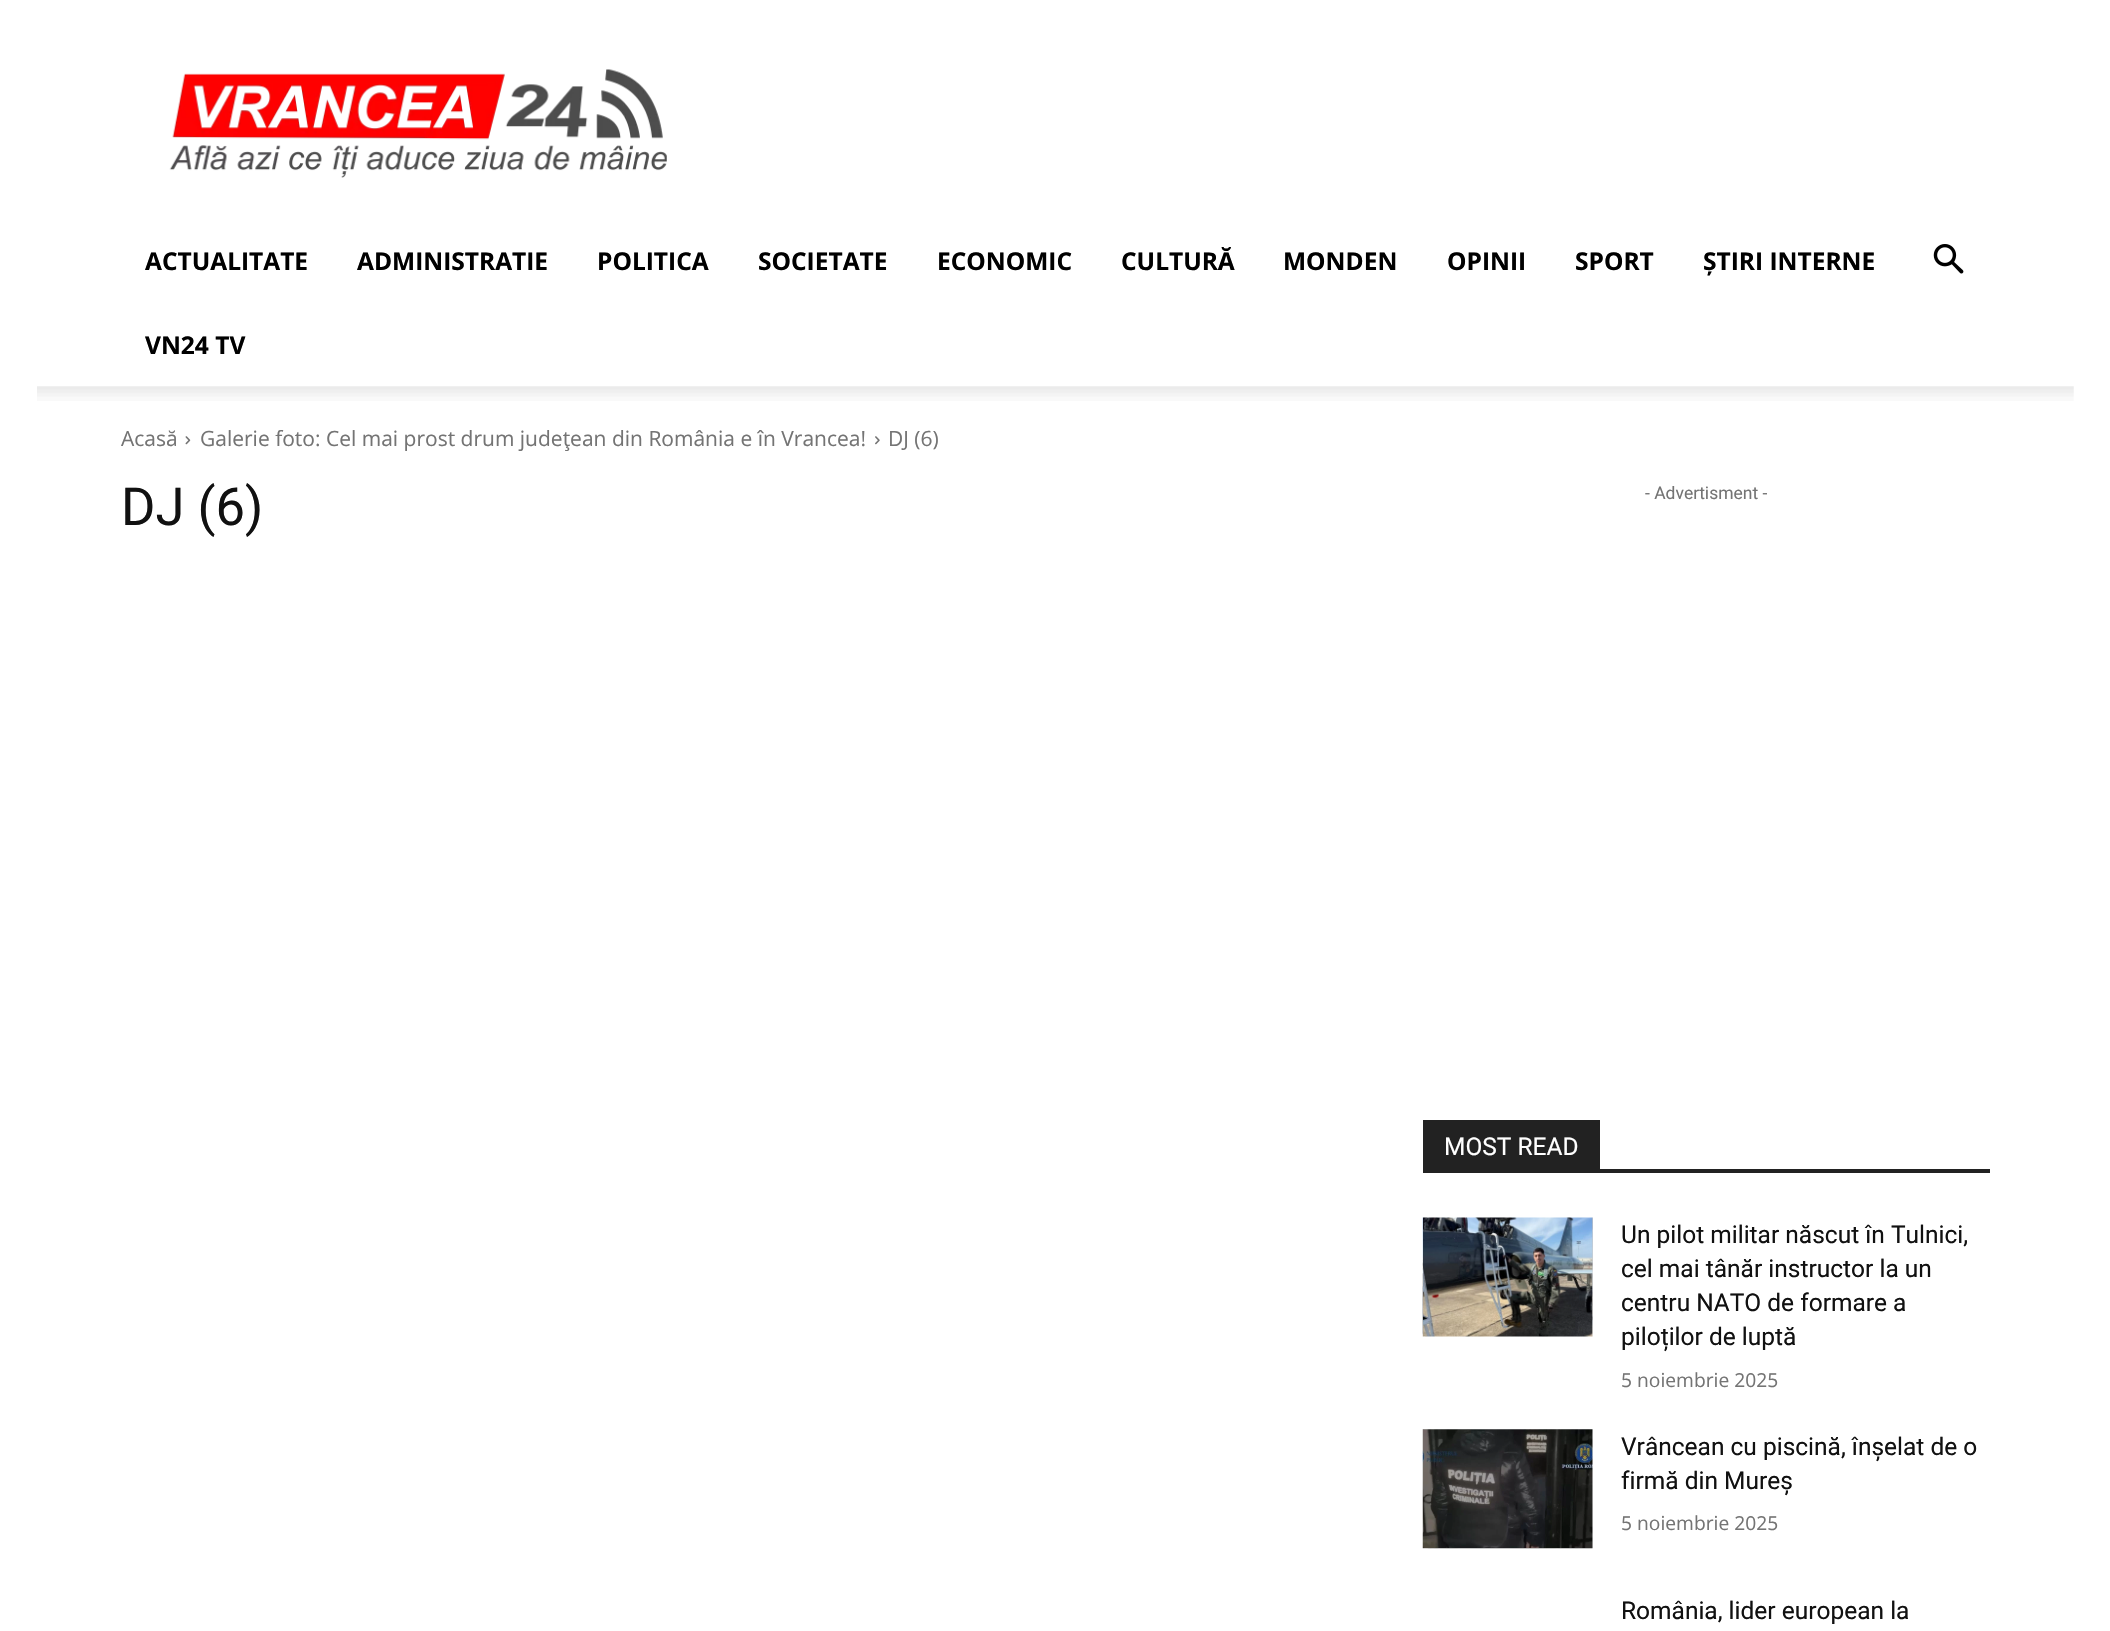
#include "include/core/SkBlurTypes.h"
#include "include/core/SkCanvas.h"
#include "include/core/SkData.h"
#include "include/core/SkFont.h"
#include "include/core/SkFontMgr.h"
#include "include/core/SkImage.h"
#include "include/core/SkMaskFilter.h"
#include "include/core/SkPaint.h"
#include "include/core/SkPathBuilder.h"
#include "include/core/SkTextBlob.h"
#include "include/effects/SkDashPathEffect.h"
#include "include/effects/SkGradientShader.h"
#include "include/utils/SkParsePath.h"

extern sk_sp<SkFontMgr> fontMgr;

void draw(SkCanvas* canvas) {
  SkPaint p;
  p.setAntiAlias(true);
  canvas->clear(SK_ColorWHITE);
  canvas->drawImageRect(SkImages::DeferredFromEncodedData(SkData::MakeFromFileName("images/1.png")), SkRect::MakeLTRB(169, 69, 667, 178), SkSamplingOptions());
  canvas->drawImageRect(SkImages::DeferredFromEncodedData(SkData::MakeFromFileName("images/2.png")), SkRect::MakeLTRB(1933, 244, 1964, 274), SkSamplingOptions());
  canvas->drawImageRect(SkImages::DeferredFromEncodedData(SkData::MakeFromFileName("images/3.png")), SkRect::MakeLTRB(37, 386, 2074, 401), SkSamplingOptions());
  canvas->drawImageRect(SkImages::DeferredFromEncodedData(SkData::MakeFromFileName("images/4.png")), SkRect::MakeLTRB(185, 436, 191, 445), SkSamplingOptions());
  canvas->drawImageRect(SkImages::DeferredFromEncodedData(SkData::MakeFromFileName("images/5.png")), SkRect::MakeLTRB(875, 436, 880, 445), SkSamplingOptions());
  p.setColor(SkColorSetRGB(34, 34, 34));
  canvas->drawRect(SkRect::MakeLTRB(1423, 1169, 1990, 1173), p);
  canvas->drawRect(SkRect::MakeLTRB(1423, 1120, 1600, 1169), p);
  canvas->drawImageRect(SkImages::DeferredFromEncodedData(SkData::MakeFromFileName("images/6.png")), SkRect::MakeLTRB(1422, 1217, 1593, 1337), SkSamplingOptions());
  canvas->drawImageRect(SkImages::DeferredFromEncodedData(SkData::MakeFromFileName("images/7.png")), SkRect::MakeLTRB(1422, 1429, 1593, 1549), SkSamplingOptions());
  SkFont font1(fontMgr->matchFamilyStyle("Open Sans", SkFontStyle::Bold()), 24.5f);
  font1.setSubpixel(true);
  p.setColor(SK_ColorBLACK);
  canvas->drawString("ACTUALITATE", 145, 270, font1, p);
  canvas->drawString("ADMINISTRATIE", 357, 270, font1, p);
  canvas->drawString("POLITICA", 597, 270, font1, p);
  canvas->drawString("SOCIETATE", 758, 270, font1, p);
  canvas->drawString("ECONOMIC", 937, 270, font1, p);
  canvas->drawString("CULTURĂ", 1121, 270, font1, p);
  canvas->drawString("MONDEN", 1283, 270, font1, p);
  canvas->drawString("OPINII", 1447, 270, font1, p);
  canvas->drawString("SPORT", 1575, 270, font1, p);
  canvas->drawString("ȘTIRI INTERNE", 1703, 270, font1, p);
  canvas->drawString("VN24 TV", 145, 354, font1, p);
  SkFont font2(fontMgr->matchFamilyStyle("Open Sans", SkFontStyle::Normal()), 21);
  font2.setSubpixel(true);
  p.setColor(SkColorSetRGB(116, 116, 116));
  canvas->drawString("Acasă", 121, 446, font2, p);
  canvas->drawString("Galerie foto: Cel mai prost drum judeţean din România e în Vrancea!", 200, 446, font2, p);
  canvas->drawString("DJ (6)", 888, 446, font2, p);
  SkFont font3(fontMgr->matchFamilyStyle("Roboto", SkFontStyle::Normal()), 52.5f);
  font3.setSubpixel(true);
  p.setColor(SkColorSetRGB(17, 17, 17));
  canvas->drawString("DJ (6)", 121, 525, font3, p);
  SkFont font4(fontMgr->matchFamilyStyle("Roboto", SkFontStyle::Normal()), 17.5f);
  font4.setSubpixel(true);
  p.setColor(SkColorSetRGB(116, 116, 116));
  canvas->drawString("- Advertisment -", 1645, 499, font4, p);
  SkFont font5(fontMgr->matchFamilyStyle("Roboto", SkFontStyle::Normal()), 24.5f);
  font5.setSubpixel(true);
  p.setColor(SK_ColorWHITE);
  canvas->drawString("MOST READ", 1444, 1155, font5, p);
  p.setColor(SkColorSetRGB(17, 17, 17));
  canvas->drawString("Un pilot militar născut în Tulnici,", 1621, 1243, font5, p);
  canvas->drawString("cel mai tânăr instructor la un", 1621, 1277, font5, p);
  canvas->drawString("centru NATO de formare a", 1621, 1311, font5, p);
  canvas->drawString("piloților de luptă", 1621, 1345, font5, p);
  SkFont font6(fontMgr->matchFamilyStyle("Open Sans", SkFontStyle::Normal()), 19.25f);
  font6.setSubpixel(true);
  p.setColor(SkColorSetRGB(116, 116, 116));
  canvas->drawString("5 noiembrie 2025", 1621, 1387, font6, p);
  p.setColor(SkColorSetRGB(17, 17, 17));
  canvas->drawString("Vrâncean cu piscină, înșelat de o", 1621, 1455, font5, p);
  canvas->drawString("firmă din Mureș", 1621, 1489, font5, p);
  p.setColor(SkColorSetRGB(116, 116, 116));
  canvas->drawString("5 noiembrie 2025", 1621, 1530, font6, p);
  p.setColor(SkColorSetRGB(17, 17, 17));
  canvas->drawString("România, lider european la", 1621, 1619, font5, p);
}
